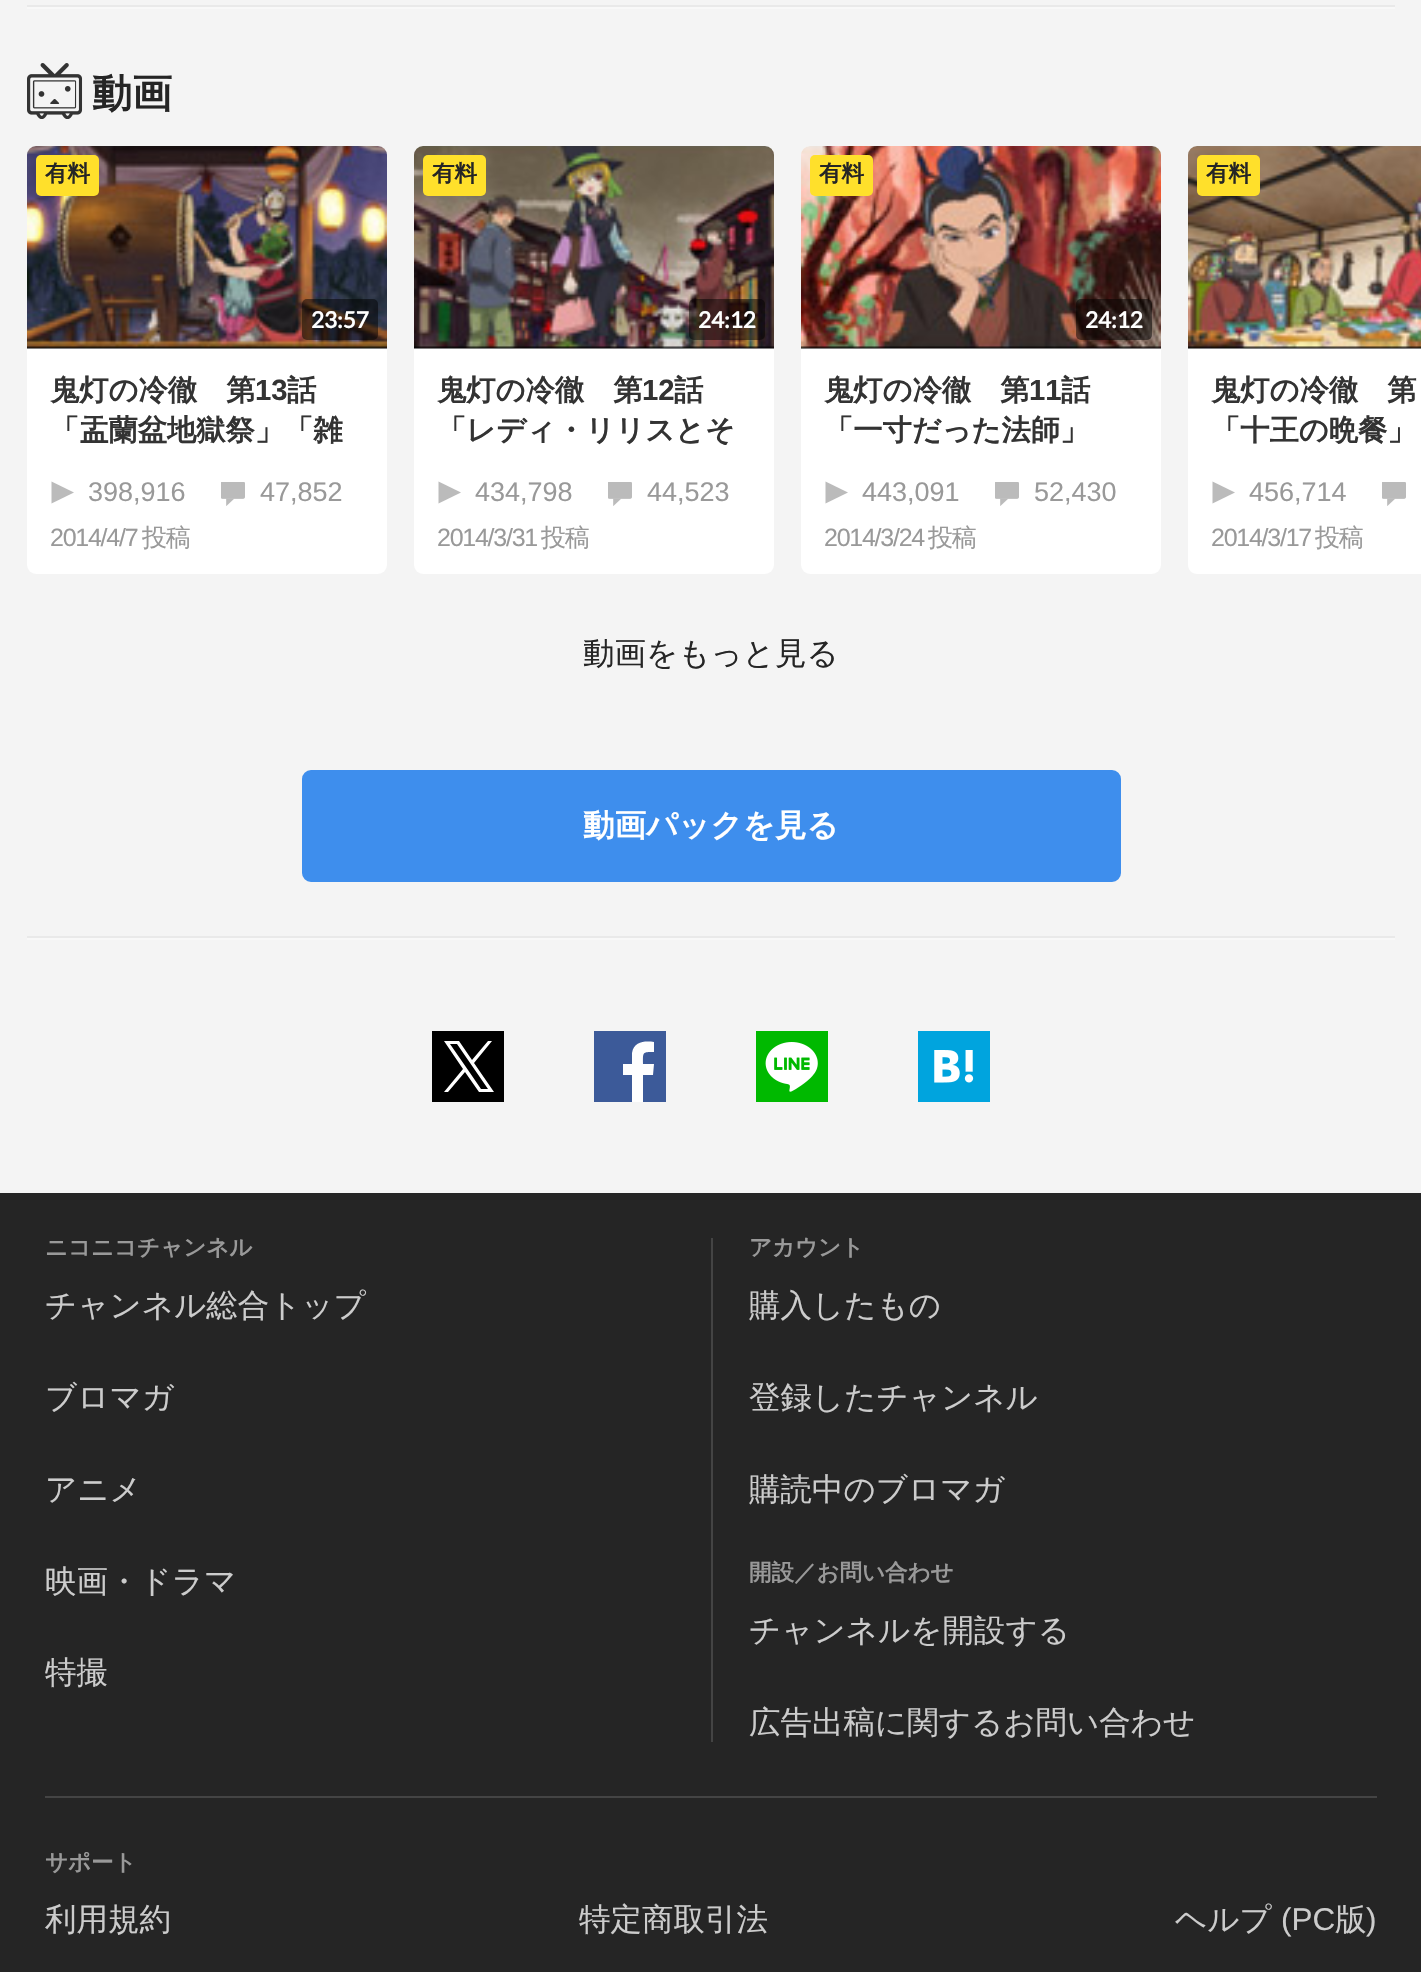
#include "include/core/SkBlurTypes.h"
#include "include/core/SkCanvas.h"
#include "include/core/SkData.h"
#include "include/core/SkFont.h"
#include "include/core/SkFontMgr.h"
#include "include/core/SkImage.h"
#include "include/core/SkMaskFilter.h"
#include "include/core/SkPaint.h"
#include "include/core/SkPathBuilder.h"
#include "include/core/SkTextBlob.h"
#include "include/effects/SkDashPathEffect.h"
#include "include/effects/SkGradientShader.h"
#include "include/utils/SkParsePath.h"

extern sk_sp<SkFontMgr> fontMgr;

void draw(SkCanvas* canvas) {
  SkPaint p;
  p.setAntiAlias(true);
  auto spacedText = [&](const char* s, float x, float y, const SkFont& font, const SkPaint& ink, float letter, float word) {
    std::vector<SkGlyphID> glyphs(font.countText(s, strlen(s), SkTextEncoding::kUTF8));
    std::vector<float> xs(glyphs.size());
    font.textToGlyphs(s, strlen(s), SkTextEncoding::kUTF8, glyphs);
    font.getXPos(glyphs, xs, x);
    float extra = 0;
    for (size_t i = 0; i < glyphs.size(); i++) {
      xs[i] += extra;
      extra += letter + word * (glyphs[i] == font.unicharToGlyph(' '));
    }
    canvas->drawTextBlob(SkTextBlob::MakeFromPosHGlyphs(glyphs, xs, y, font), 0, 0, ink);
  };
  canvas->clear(SkColorSetRGB(244, 244, 244));
  p.setColor(SkColorSetRGB(233, 233, 233));
  canvas->drawRect(SkRect::MakeLTRB(27, 5, 1395, 7), p);
  p.setColor(SkColorSetRGB(248, 248, 248));
  canvas->drawRect(SkRect::MakeLTRB(27, 7, 1395, 9), p);
  canvas->drawImageRect(SkImages::DeferredFromEncodedData(SkData::MakeFromFileName("images/1.png")), SkRect::MakeLTRB(27, 63, 83, 119), SkSamplingOptions());
  p.setColor(SK_ColorWHITE);
  canvas->drawRoundRect(SkRect::MakeLTRB(27, 146, 387, 574), 9, 9, p);
  canvas->drawImageRect(SkImages::DeferredFromEncodedData(SkData::MakeFromFileName("images/2.png")), SkRect::MakeLTRB(27, 146, 387, 349), SkSamplingOptions());
  p.setColor(SkColorSetRGB(255, 224, 43));
  canvas->drawRoundRect(SkRect::MakeLTRB(36, 155, 99, 196), 5, 5, p);
  p.setColor(SkColorSetARGB(128, 0, 0, 0));
  canvas->drawRoundRect(SkRect::MakeLTRB(302, 299, 378, 340), 5, 5, p);
  p.setColor(SkColorSetRGB(187, 187, 187));
  canvas->drawPath(SkPathBuilder(SkPathFillType::kEvenOdd).moveTo(51.5f, 481.5f).lineTo(51.5f, 503.5f).lineTo(74, 492.5f).close().detach(), p);
  canvas->drawImageRect(SkImages::DeferredFromEncodedData(SkData::MakeFromFileName("images/3.png")), SkRect::MakeLTRB(221, 482, 245, 506), SkSamplingOptions());
  p.setColor(SK_ColorWHITE);
  canvas->drawRoundRect(SkRect::MakeLTRB(414, 146, 774, 574), 9, 9, p);
  canvas->drawImageRect(SkImages::DeferredFromEncodedData(SkData::MakeFromFileName("images/4.png")), SkRect::MakeLTRB(414, 146, 774, 349), SkSamplingOptions());
  p.setColor(SkColorSetRGB(255, 224, 43));
  canvas->drawRoundRect(SkRect::MakeLTRB(423, 155, 486, 196), 5, 5, p);
  p.setColor(SkColorSetARGB(128, 0, 0, 0));
  canvas->drawRoundRect(SkRect::MakeLTRB(689, 299, 765, 340), 5, 5, p);
  p.setColor(SkColorSetRGB(187, 187, 187));
  canvas->drawPath(SkPathBuilder(SkPathFillType::kEvenOdd).moveTo(438.5f, 481.5f).lineTo(438.5f, 503.5f).lineTo(461, 492.5f).close().detach(), p);
  canvas->drawImageRect(SkImages::DeferredFromEncodedData(SkData::MakeFromFileName("images/3.png")), SkRect::MakeLTRB(608, 482, 632, 506), SkSamplingOptions());
  p.setColor(SK_ColorWHITE);
  canvas->drawRoundRect(SkRect::MakeLTRB(801, 146, 1161, 574), 9, 9, p);
  canvas->drawImageRect(SkImages::DeferredFromEncodedData(SkData::MakeFromFileName("images/5.png")), SkRect::MakeLTRB(801, 146, 1161, 349), SkSamplingOptions());
  p.setColor(SkColorSetRGB(255, 224, 43));
  canvas->drawRoundRect(SkRect::MakeLTRB(810, 155, 873, 196), 5, 5, p);
  p.setColor(SkColorSetARGB(128, 0, 0, 0));
  canvas->drawRoundRect(SkRect::MakeLTRB(1076, 299, 1152, 340), 5, 5, p);
  p.setColor(SkColorSetRGB(187, 187, 187));
  canvas->drawPath(SkPathBuilder(SkPathFillType::kEvenOdd).moveTo(825.5f, 481.5f).lineTo(825.5f, 503.5f).lineTo(848, 492.5f).close().detach(), p);
  canvas->drawImageRect(SkImages::DeferredFromEncodedData(SkData::MakeFromFileName("images/3.png")), SkRect::MakeLTRB(995, 482, 1019, 506), SkSamplingOptions());
  p.setColor(SK_ColorWHITE);
  canvas->drawPath(SkPathBuilder().moveTo(1197, 146).lineTo(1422, 146).lineTo(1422, 574).lineTo(1197, 574).cubicTo(1192, 574, 1188, 570, 1188, 565).lineTo(1188, 155).cubicTo(1188, 150, 1192, 146, 1197, 146).close().detach(), p);
  canvas->drawImageRect(SkImages::DeferredFromEncodedData(SkData::MakeFromFileName("images/6.png")), SkRect::MakeLTRB(1188, 146, 1421, 349), SkSamplingOptions());
  p.setColor(SkColorSetRGB(255, 224, 43));
  canvas->drawRoundRect(SkRect::MakeLTRB(1197, 155, 1260, 196), 5, 5, p);
  p.setColor(SkColorSetRGB(187, 187, 187));
  canvas->drawPath(SkPathBuilder(SkPathFillType::kEvenOdd).moveTo(1212.5f, 481.5f).lineTo(1212.5f, 503.5f).lineTo(1235, 492.5f).close().detach(), p);
  canvas->drawImageRect(SkImages::DeferredFromEncodedData(SkData::MakeFromFileName("images/3.png")), SkRect::MakeLTRB(1382, 482, 1406, 506), SkSamplingOptions());
  p.setColor(SkColorSetRGB(62, 142, 237));
  canvas->drawRoundRect(SkRect::MakeLTRB(304.5f, 772.5f, 1118.5f, 879.5f), 6.5f, 6.5f, p);
  p.setStyle(SkPaint::kStroke_Style);
  p.setStrokeWidth(5);
  canvas->drawRoundRect(SkRect::MakeLTRB(304.5f, 772.5f, 1118.5f, 879.5f), 6.5f, 6.5f, p);
  p.setStyle(SkPaint::kFill_Style);
  p.setColor(SkColorSetRGB(233, 233, 233));
  canvas->drawRect(SkRect::MakeLTRB(27, 936, 1395, 938), p);
  p.setColor(SkColorSetRGB(248, 248, 248));
  canvas->drawRect(SkRect::MakeLTRB(27, 938, 1395, 940), p);
  p.setColor(SK_ColorBLACK);
  canvas->drawRect(SkRect::MakeLTRB(432, 1031, 504, 1102), p);
  p.setColor(SK_ColorWHITE);
  canvas->drawPath(SkPathBuilder().moveTo(474, 1063).lineTo(492, 1041).lineTo(488, 1041).lineTo(472, 1060).lineTo(459, 1041).lineTo(444, 1041).lineTo(463, 1069).lineTo(444, 1092).lineTo(448, 1092).lineTo(465, 1072).lineTo(479, 1092).lineTo(494, 1092).close().moveTo(468, 1070).lineTo(450, 1044).lineTo(457, 1044).lineTo(488, 1089).lineTo(481, 1089).close().detach(), p);
  p.setColor(SkColorSetRGB(60, 90, 153));
  canvas->drawRect(SkRect::MakeLTRB(594, 1031, 666, 1102), p);
  p.setColor(SkColorSetRGB(254, 254, 254));
  canvas->drawPath(SkPathBuilder(SkPathFillType::kEvenOdd).moveTo(643, 1102).lineTo(643, 1075).lineTo(653, 1075).lineTo(654, 1064).lineTo(643, 1064).cubicTo(643, 1052, 642, 1052, 654, 1052).lineTo(654, 1042).cubicTo(645, 1041, 634, 1041, 632, 1053).lineTo(632, 1064).lineTo(623, 1064).lineTo(623, 1075).lineTo(632, 1075).lineTo(632, 1102).close().detach(), p);
  canvas->drawImageRect(SkImages::DeferredFromEncodedData(SkData::MakeFromFileName("images/7.png")), SkRect::MakeLTRB(756, 1031, 828, 1102), SkSamplingOptions());
  canvas->drawImageRect(SkImages::DeferredFromEncodedData(SkData::MakeFromFileName("images/8.png")), SkRect::MakeLTRB(918, 1031, 990, 1102), SkSamplingOptions());
  p.setColor(SkColorSetRGB(37, 37, 37));
  canvas->drawRect(SkRect::MakeLTRB(0, 1193, 1421, 1972), p);
  p.setColor(SkColorSetRGB(68, 68, 68));
  canvas->drawRect(SkRect::MakeLTRB(711, 1238, 713, 1742), p);
  canvas->drawRect(SkRect::MakeLTRB(45, 1796, 1377, 1798), p);
  SkFont font1(fontMgr->matchFamilyStyle("WenQuanYi Zen Hei", SkFontStyle::Bold()), 40);
  font1.setSubpixel(true);
  p.setColor(SkColorSetRGB(37, 37, 37));
  canvas->drawString("動画", 92, 107, font1, p);
  SkFont font2(fontMgr->matchFamilyStyle("WenQuanYi Zen Hei", SkFontStyle::Bold()), 22.5f);
  font2.setSubpixel(true);
  canvas->drawString("有料", 45, 181, font2, p);
  SkFont font3(fontMgr->matchFamilyStyle("Lato", SkFontStyle::Bold()), 22.5f);
  font3.setSubpixel(true);
  p.setColor(SK_ColorWHITE);
  canvas->drawString("23:57", 311, 328, font3, p);
  SkFont font4(fontMgr->matchFamilyStyle("WenQuanYi Zen Hei", SkFontStyle::Bold()), 29.25f);
  font4.setSubpixel(true);
  p.setColor(SkColorSetRGB(51, 51, 51));
  canvas->drawString("鬼灯の冷徹　第", 50, 400, font4, p);
  SkFont font5(fontMgr->matchFamilyStyle("Liberation Sans", SkFontStyle::Bold()), 29.25f);
  font5.setSubpixel(true);
  canvas->drawString("13", 255, 400, font5, p);
  canvas->drawString("話", 287, 400, font4, p);
  canvas->drawString("「盂蘭盆地獄祭」「雑", 50, 440, font4, p);
  SkFont font6(fontMgr->matchFamilyStyle("Liberation Sans", SkFontStyle::Normal()), 27);
  font6.setSubpixel(true);
  p.setColor(SkColorSetRGB(153, 153, 153));
  canvas->drawString("398,916", 88, 501, font6, p);
  canvas->drawString("47,852", 260, 501, font6, p);
  SkFont font7(fontMgr->matchFamilyStyle("Liberation Sans", SkFontStyle::Normal()), 25);
  font7.setSubpixel(true);
  spacedText("2014/4/7", 50, 546, font7, p, -1.25f, 0);
  SkFont font8(fontMgr->matchFamilyStyle("WenQuanYi Zen Hei", SkFontStyle(500, SkFontStyle::kNormal_Width, SkFontStyle::kUpright_Slant)), 25);
  font8.setSubpixel(true);
  spacedText("投稿", 142, 546, font8, p, -1.25f, 0);
  p.setColor(SkColorSetRGB(37, 37, 37));
  canvas->drawString("有料", 432, 181, font2, p);
  p.setColor(SK_ColorWHITE);
  canvas->drawString("24:12", 698, 328, font3, p);
  p.setColor(SkColorSetRGB(51, 51, 51));
  canvas->drawString("鬼灯の冷徹　第", 437, 400, font4, p);
  canvas->drawString("12", 642, 400, font5, p);
  canvas->drawString("話", 674, 400, font4, p);
  canvas->drawString("「レディ・リリスとそ", 437, 440, font4, p);
  p.setColor(SkColorSetRGB(153, 153, 153));
  canvas->drawString("434,798", 475, 501, font6, p);
  canvas->drawString("44,523", 647, 501, font6, p);
  spacedText("2014/3/31", 437, 546, font7, p, -1.25f, 0);
  spacedText("投稿", 541, 546, font8, p, -1.25f, 0);
  p.setColor(SkColorSetRGB(37, 37, 37));
  canvas->drawString("有料", 819, 181, font2, p);
  p.setColor(SK_ColorWHITE);
  canvas->drawString("24:12", 1085, 328, font3, p);
  p.setColor(SkColorSetRGB(51, 51, 51));
  canvas->drawString("鬼灯の冷徹　第", 824, 400, font4, p);
  canvas->drawString("11", 1029, 400, font5, p);
  canvas->drawString("話", 1061, 400, font4, p);
  canvas->drawString("「一寸だった法師」", 824, 440, font4, p);
  p.setColor(SkColorSetRGB(153, 153, 153));
  canvas->drawString("443,091", 862, 501, font6, p);
  canvas->drawString("52,430", 1034, 501, font6, p);
  spacedText("2014/3/24", 824, 546, font7, p, -1.25f, 0);
  spacedText("投稿", 928, 546, font8, p, -1.25f, 0);
  p.setColor(SkColorSetRGB(37, 37, 37));
  canvas->drawString("有料", 1206, 181, font2, p);
  p.setColor(SkColorSetRGB(51, 51, 51));
  canvas->drawString("鬼灯の冷徹　第", 1211, 400, font4, p);
  canvas->drawString("「十王の晩餐」", 1211, 440, font4, p);
  p.setColor(SkColorSetRGB(153, 153, 153));
  canvas->drawString("456,714", 1249, 501, font6, p);
  spacedText("2014/3/17", 1211, 546, font7, p, -1.25f, 0);
  spacedText("投稿", 1315, 546, font8, p, -1.25f, 0);
  SkFont font9(fontMgr->matchFamilyStyle("WenQuanYi Zen Hei", SkFontStyle(500, SkFontStyle::kNormal_Width, SkFontStyle::kUpright_Slant)), 31.5f);
  font9.setSubpixel(true);
  p.setColor(SkColorSetRGB(37, 37, 37));
  canvas->drawString("動画をもっと見る", 583, 664, font9, p);
  SkFont font10(fontMgr->matchFamilyStyle("WenQuanYi Zen Hei", SkFontStyle::Bold()), 31.5f);
  font10.setSubpixel(true);
  p.setColor(SK_ColorWHITE);
  canvas->drawString("動画パックを見る", 583, 836, font10, p);
  p.setColor(SkColorSetRGB(153, 153, 153));
  canvas->drawString("ニコニコチャンネル", 45, 1255, font2, p);
  p.setColor(SkColorSetRGB(204, 204, 204));
  canvas->drawString("チャンネル総合トップ", 45, 1316, font9, p);
  canvas->drawString("ブロマガ", 45, 1408, font9, p);
  canvas->drawString("アニメ", 45, 1500, font9, p);
  canvas->drawString("映画・ドラマ", 45, 1592, font9, p);
  canvas->drawString("特撮", 45, 1683, font9, p);
  p.setColor(SkColorSetRGB(153, 153, 153));
  canvas->drawString("アカウント", 749, 1255, font2, p);
  p.setColor(SkColorSetRGB(204, 204, 204));
  canvas->drawString("購入したもの", 749, 1316, font9, p);
  canvas->drawString("登録したチャンネル", 749, 1408, font9, p);
  canvas->drawString("購読中のブロマガ", 749, 1500, font9, p);
  p.setColor(SkColorSetRGB(153, 153, 153));
  canvas->drawString("開設／お問い合わせ", 749, 1580, font2, p);
  p.setColor(SkColorSetRGB(204, 204, 204));
  canvas->drawString("チャンネルを開設する", 749, 1641, font9, p);
  canvas->drawString("広告出稿に関するお問い合わせ", 749, 1733, font9, p);
  p.setColor(SkColorSetRGB(153, 153, 153));
  canvas->drawString("サポート", 45, 1870, font2, p);
  p.setColor(SkColorSetRGB(204, 204, 204));
  canvas->drawString("利用規約", 45, 1930, font9, p);
  canvas->drawString("特定商取引法", 579, 1930, font9, p);
  canvas->drawString("ヘルプ", 1175, 1930, font9, p);
  SkFont font11(fontMgr->matchFamilyStyle("Liberation Sans", SkFontStyle::Normal()), 31.5f);
  font11.setSubpixel(true);
  canvas->drawString("(PC", 1281, 1930, font11, p);
  canvas->drawString("版", 1335, 1930, font9, p);
  canvas->drawString(")", 1366, 1930, font11, p);
}
